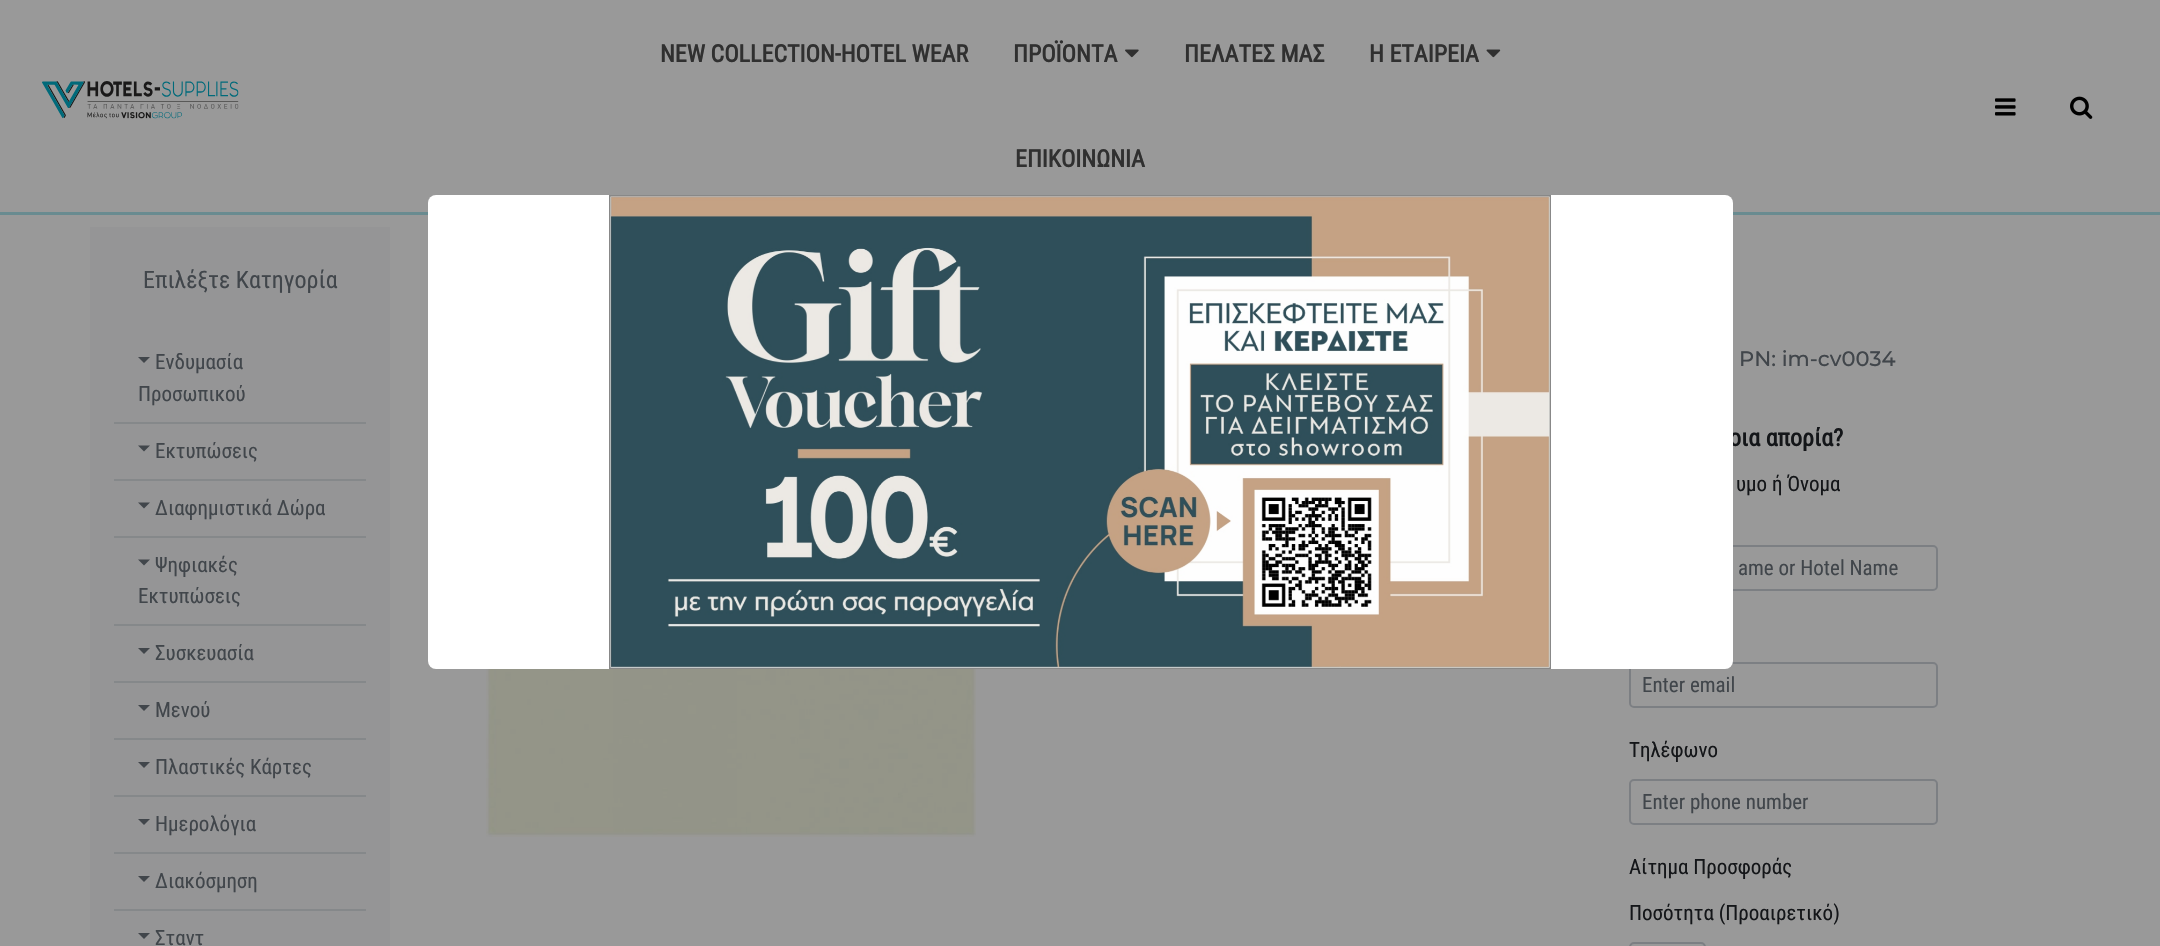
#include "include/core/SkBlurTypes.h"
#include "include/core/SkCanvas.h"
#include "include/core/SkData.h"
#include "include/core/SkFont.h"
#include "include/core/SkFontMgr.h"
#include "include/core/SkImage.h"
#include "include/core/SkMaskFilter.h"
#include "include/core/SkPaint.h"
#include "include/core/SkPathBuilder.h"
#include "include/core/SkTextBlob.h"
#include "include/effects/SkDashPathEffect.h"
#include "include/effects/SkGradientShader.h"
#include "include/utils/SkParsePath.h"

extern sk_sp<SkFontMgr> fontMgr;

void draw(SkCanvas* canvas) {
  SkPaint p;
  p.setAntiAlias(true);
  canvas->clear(SkColorSetRGB(153, 153, 153));
  p.setColor(SkColorSetRGB(105, 139, 144));
  canvas->drawRect(SkRect::MakeLTRB(0, 212, 2160, 215), p);
  canvas->drawImageRect(SkImages::DeferredFromEncodedData(SkData::MakeFromFileName("images/1.png")), SkRect::MakeLTRB(42, 81, 239, 119), SkSamplingOptions());
  canvas->drawImageRect(SkImages::DeferredFromEncodedData(SkData::MakeFromFileName("images/2.png")), SkRect::MakeLTRB(1125, 49, 1139, 58), SkSamplingOptions());
  canvas->drawImageRect(SkImages::DeferredFromEncodedData(SkData::MakeFromFileName("images/3.png")), SkRect::MakeLTRB(1486, 49, 1501, 58), SkSamplingOptions());
  canvas->drawImageRect(SkImages::DeferredFromEncodedData(SkData::MakeFromFileName("images/4.png")), SkRect::MakeLTRB(1995, 98, 2016, 116), SkSamplingOptions());
  canvas->drawImageRect(SkImages::DeferredFromEncodedData(SkData::MakeFromFileName("images/5.png")), SkRect::MakeLTRB(2070, 96, 2093, 119), SkSamplingOptions());
  p.setColor(SkColorSetRGB(149, 149, 150));
  canvas->drawRect(SkRect::MakeLTRB(90, 227, 390, 946), p);
  p.setColor(SkColorSetRGB(133, 136, 138));
  canvas->drawRect(SkRect::MakeLTRB(114, 422, 366, 424), p);
  p.setColor(SkColorSetRGB(65, 70, 75));
  canvas->drawPath(SkPathBuilder().moveTo(138, 357).lineTo(150, 357).lineTo(144, 363).close().detach(), p);
  p.setColor(SkColorSetRGB(133, 136, 138));
  canvas->drawRect(SkRect::MakeLTRB(114, 479, 366, 481), p);
  p.setColor(SkColorSetRGB(65, 70, 75));
  canvas->drawPath(SkPathBuilder().moveTo(138, 445.5f).lineTo(150, 445.5f).lineTo(144, 451.5f).close().detach(), p);
  p.setColor(SkColorSetRGB(133, 136, 138));
  canvas->drawRect(SkRect::MakeLTRB(114, 536, 366, 538), p);
  p.setColor(SkColorSetRGB(65, 70, 75));
  canvas->drawPath(SkPathBuilder().moveTo(138, 502.5f).lineTo(150, 502.5f).lineTo(144, 508.5f).close().detach(), p);
  p.setColor(SkColorSetRGB(133, 136, 138));
  canvas->drawRect(SkRect::MakeLTRB(114, 624, 366, 626), p);
  p.setColor(SkColorSetRGB(65, 70, 75));
  canvas->drawPath(SkPathBuilder().moveTo(138, 559.5f).lineTo(150, 559.5f).lineTo(144, 565.5f).close().detach(), p);
  p.setColor(SkColorSetRGB(133, 136, 138));
  canvas->drawRect(SkRect::MakeLTRB(114, 681, 366, 683), p);
  p.setColor(SkColorSetRGB(65, 70, 75));
  canvas->drawPath(SkPathBuilder().moveTo(138, 648).lineTo(150, 648).lineTo(144, 654).close().detach(), p);
  p.setColor(SkColorSetRGB(133, 136, 138));
  canvas->drawRect(SkRect::MakeLTRB(114, 738, 366, 740), p);
  p.setColor(SkColorSetRGB(65, 70, 75));
  canvas->drawPath(SkPathBuilder().moveTo(138, 705).lineTo(150, 705).lineTo(144, 711).close().detach(), p);
  p.setColor(SkColorSetRGB(133, 136, 138));
  canvas->drawRect(SkRect::MakeLTRB(114, 795, 366, 797), p);
  p.setColor(SkColorSetRGB(65, 70, 75));
  canvas->drawPath(SkPathBuilder().moveTo(138, 762).lineTo(150, 762).lineTo(144, 768).close().detach(), p);
  p.setColor(SkColorSetRGB(133, 136, 138));
  canvas->drawRect(SkRect::MakeLTRB(114, 852, 366, 854), p);
  p.setColor(SkColorSetRGB(65, 70, 75));
  canvas->drawPath(SkPathBuilder().moveTo(138, 819).lineTo(150, 819).lineTo(144, 825).close().detach(), p);
  p.setColor(SkColorSetRGB(133, 136, 138));
  canvas->drawRect(SkRect::MakeLTRB(114, 909, 366, 911), p);
  p.setColor(SkColorSetRGB(65, 70, 75));
  canvas->drawPath(SkPathBuilder().moveTo(138, 876).lineTo(150, 876).lineTo(144, 882).close().detach(), p);
  canvas->drawPath(SkPathBuilder().moveTo(138, 933).lineTo(150, 933).lineTo(144, 939).close().detach(), p);
  canvas->drawImageRect(SkImages::DeferredFromEncodedData(SkData::MakeFromFileName("images/7.png")), SkRect::MakeLTRB(486, 669, 976, 837), SkSamplingOptions());
  p.setStyle(SkPaint::kStroke_Style);
  p.setStrokeWidth(2);
  p.setColor(SkColorSetRGB(124, 127, 131));
  canvas->drawRoundRect(SkRect::MakeLTRB(1630, 546, 1937, 590), 4, 4, p);
  canvas->drawRoundRect(SkRect::MakeLTRB(1630, 663, 1937, 707), 4, 4, p);
  canvas->drawRoundRect(SkRect::MakeLTRB(1630, 780, 1937, 824), 4, 4, p);
  canvas->drawRoundRect(SkRect::MakeLTRB(1630, 943, 1705, 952), 4, 4, p);
  SkFont font1(fontMgr->matchFamilyStyle("Roboto Condensed", SkFontStyle::Bold()), 24);
  font1.setSubpixel(true);
  p.setStyle(SkPaint::kFill_Style);
  p.setColor(SkColorSetRGB(48, 48, 48));
  canvas->drawString("NEW COLLECTION-HOTEL WEAR", 660, 62, font1, p);
  canvas->drawString("ΠΡΟΪΟΝΤΑ", 1013, 62, font1, p);
  canvas->drawString("ΠΕΛΑΤΕΣ ΜΑΣ", 1184, 62, font1, p);
  canvas->drawString("Η ΕΤΑΙΡΕΙΑ", 1369, 62, font1, p);
  canvas->drawString("ΕΠΙΚΟΙΝΩΝΙΑ", 1015, 167, font1, p);
  SkFont font2(fontMgr->matchFamilyStyle("Roboto Condensed", SkFontStyle::Normal()), 24);
  font2.setSubpixel(true);
  p.setColor(SkColorSetRGB(65, 70, 75));
  canvas->drawString("Επιλέξτε Κατηγορία", 143, 288, font2, p);
  SkFont font3(fontMgr->matchFamilyStyle("Roboto Condensed", SkFontStyle::Normal()), 21);
  font3.setSubpixel(true);
  canvas->drawString("Ενδυμασία", 155, 369, font3, p);
  canvas->drawString("Προσωπικού", 138, 401, font3, p);
  canvas->drawString("Εκτυπώσεις", 155, 458, font3, p);
  canvas->drawString("Διαφημιστικά Δώρα", 155, 515, font3, p);
  canvas->drawString("Ψηφιακές", 155, 572, font3, p);
  canvas->drawString("Εκτυπώσεις", 138, 603, font3, p);
  canvas->drawString("Συσκευασία", 155, 660, font3, p);
  canvas->drawString("Μενού", 155, 717, font3, p);
  canvas->drawString("Πλαστικές Κάρτες", 155, 774, font3, p);
  canvas->drawString("Ημερολόγια", 155, 831, font3, p);
  canvas->drawString("Διακόσμηση", 155, 888, font3, p);
  canvas->drawString("Σταντ", 155, 945, font3, p);
  SkFont font4(fontMgr->matchFamilyStyle("Montserrat", SkFontStyle(500, SkFontStyle::kNormal_Width, SkFontStyle::kUpright_Slant)), 21);
  font4.setSubpixel(true);
  canvas->drawString("PN: im-cv0034", 1739, 366, font4, p);
  p.setColor(SkColorSetRGB(20, 22, 25));
  canvas->drawString("οια απορία?", 1729, 446, font1, p);
  p.setColor(SK_ColorWHITE);
  canvas->drawRoundRect(SkRect::MakeLTRB(428, 195, 1733, 669), 8, 8, p);
  p.setStyle(SkPaint::kStroke_Style);
  p.setColor(SkColorSetRGB(136, 136, 136));
  canvas->drawRect(SkRect::MakeLTRB(610, 196, 1550, 668), p);
  canvas->drawImageRect(SkImages::DeferredFromEncodedData(SkData::MakeFromFileName("images/6.png")), SkRect::MakeLTRB(610, 196, 1550, 668), SkSamplingOptions());
  p.setStyle(SkPaint::kFill_Style);
  p.setColor(SkColorSetRGB(20, 22, 25));
  canvas->drawString("υμο ή Όνομα", 1736, 491, font3, p);
  p.setColor(SkColorSetRGB(65, 70, 75));
  canvas->drawString("ame or Hotel Name", 1738, 575, font3, p);
  canvas->drawString("Enter email", 1642, 692, font3, p);
  p.setColor(SkColorSetRGB(20, 22, 25));
  canvas->drawString("Τηλέφωνο", 1629, 757, font3, p);
  p.setColor(SkColorSetRGB(65, 70, 75));
  canvas->drawString("Enter phone number", 1642, 809, font3, p);
  p.setColor(SkColorSetRGB(20, 22, 25));
  canvas->drawString("Αίτημα Προσφοράς", 1629, 874, font3, p);
  canvas->drawString("Ποσότητα (Προαιρετικό)", 1629, 920, font3, p);
}
